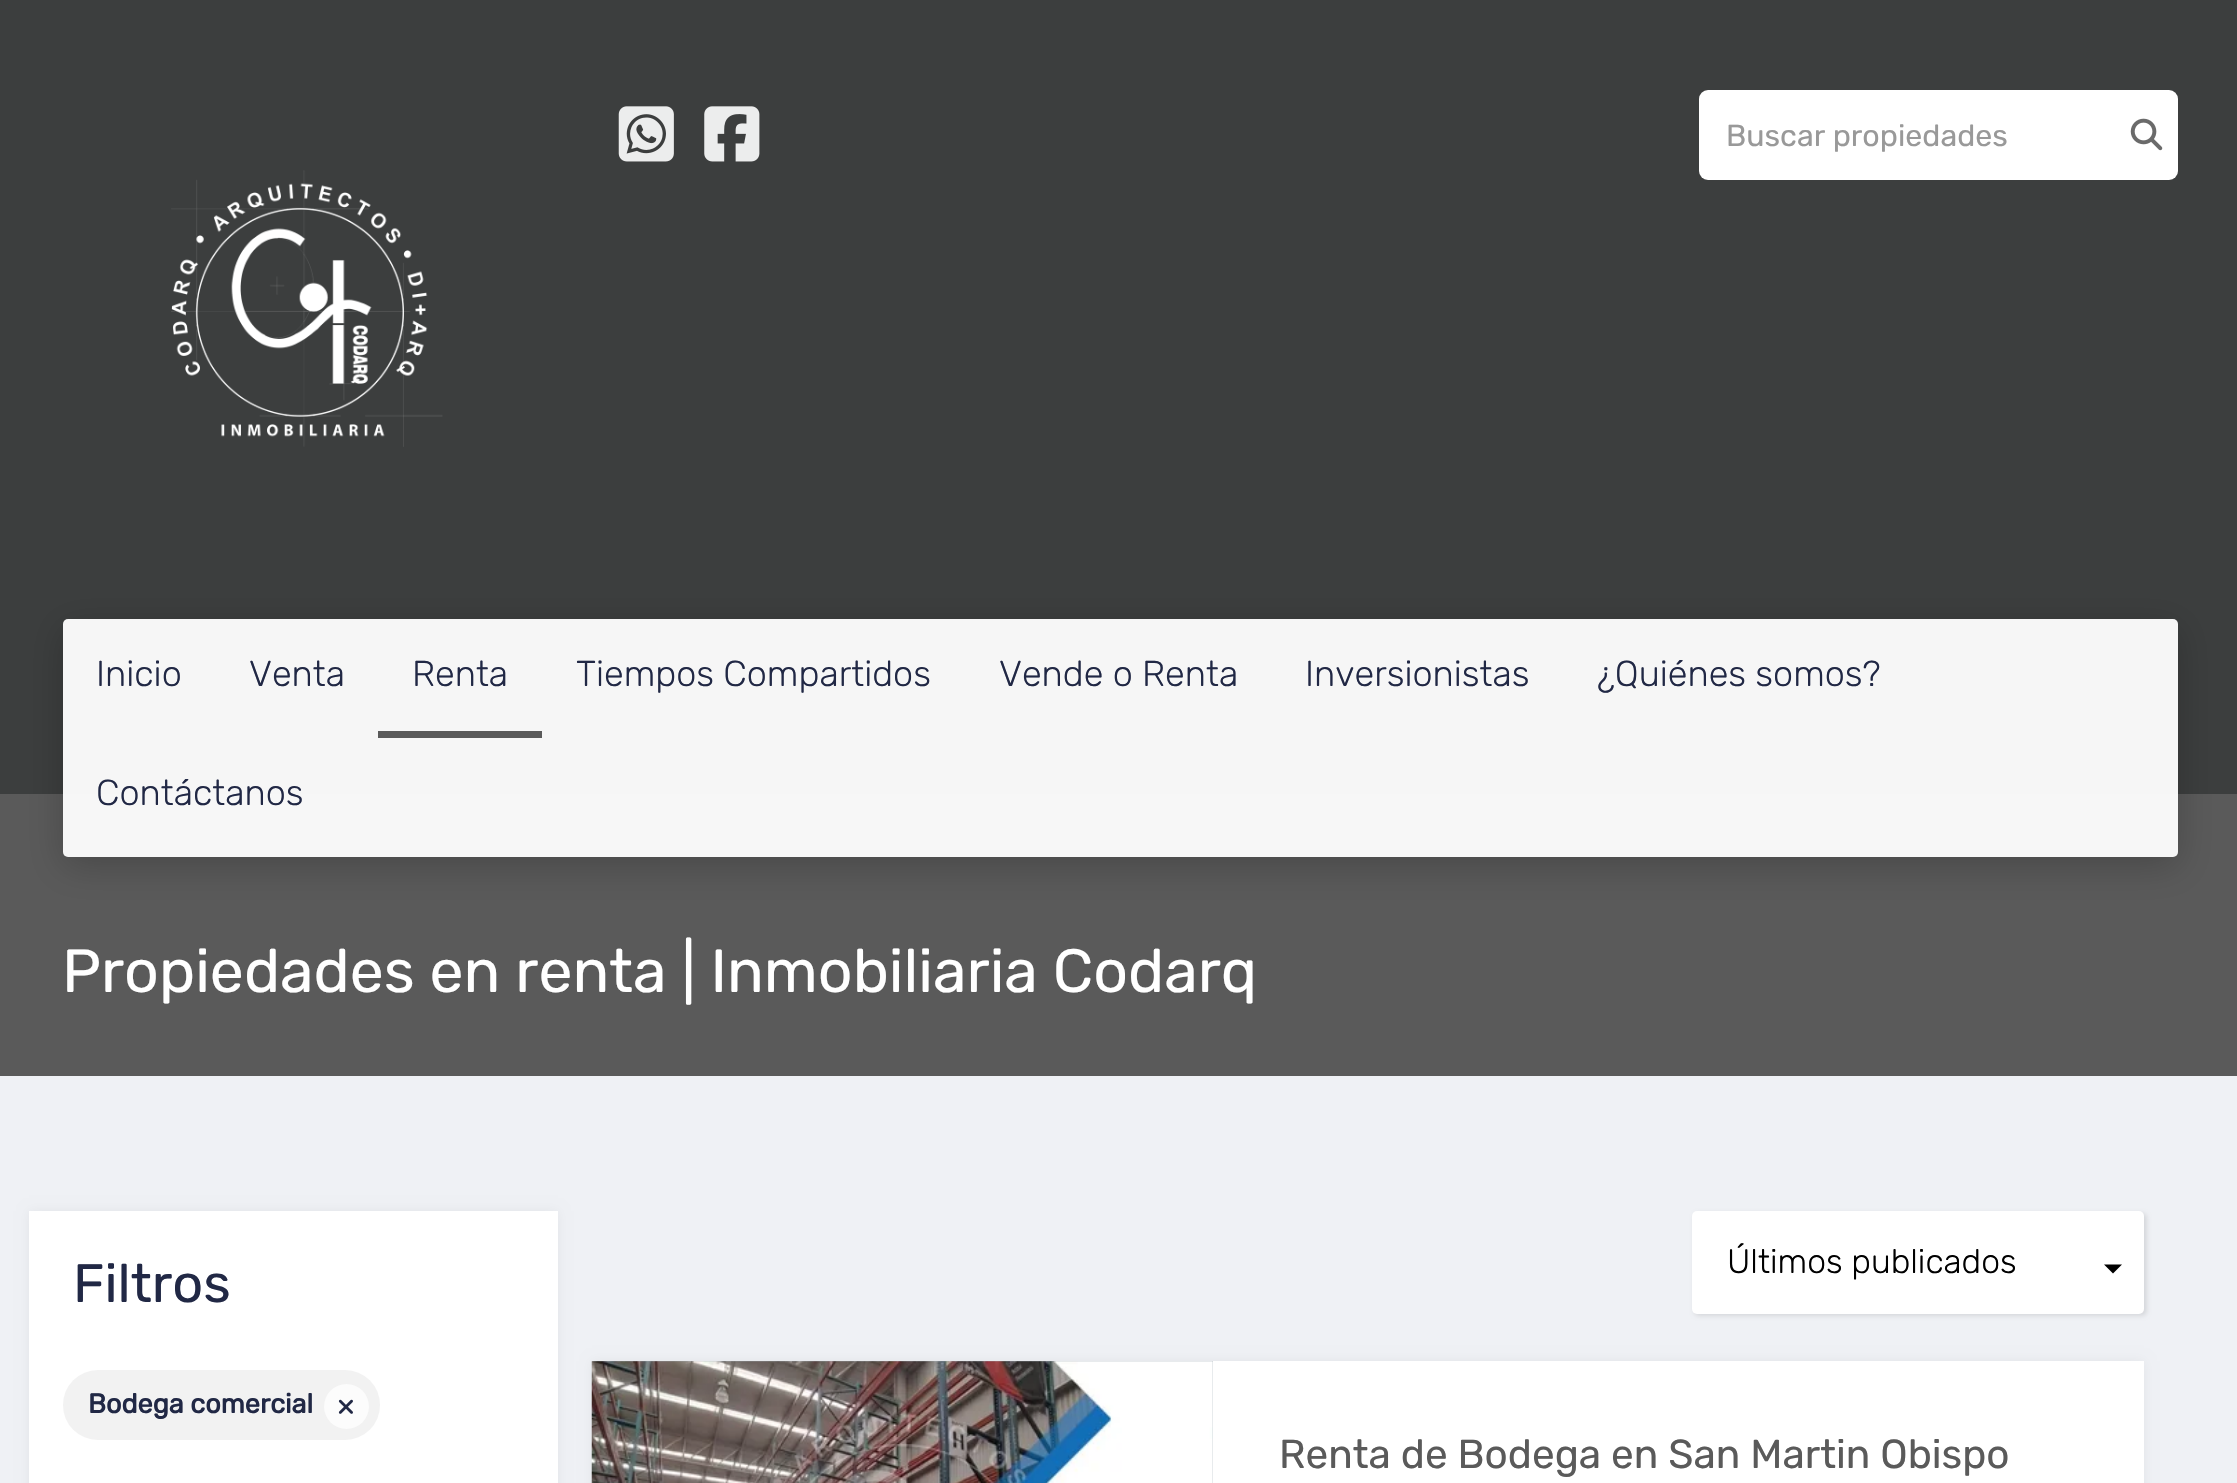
#include "include/core/SkBlurTypes.h"
#include "include/core/SkCanvas.h"
#include "include/core/SkData.h"
#include "include/core/SkFont.h"
#include "include/core/SkFontMgr.h"
#include "include/core/SkImage.h"
#include "include/core/SkMaskFilter.h"
#include "include/core/SkPaint.h"
#include "include/core/SkPathBuilder.h"
#include "include/core/SkTextBlob.h"
#include "include/effects/SkDashPathEffect.h"
#include "include/effects/SkGradientShader.h"
#include "include/utils/SkParsePath.h"

extern sk_sp<SkFontMgr> fontMgr;

void draw(SkCanvas* canvas) {
  SkPaint p;
  p.setAntiAlias(true);
  canvas->clear(SkColorSetRGB(239, 241, 245));
  p.setColor(SkColorSetRGB(60, 62, 62));
  canvas->drawRect(SkRect::MakeLTRB(0, 0, 2237, 794), p);
  canvas->drawImageRect(SkImages::DeferredFromEncodedData(SkData::MakeFromFileName("images/1.png")), SkRect::MakeLTRB(618, 106, 674, 162), SkSamplingOptions());
  canvas->drawImageRect(SkImages::DeferredFromEncodedData(SkData::MakeFromFileName("images/2.png")), SkRect::MakeLTRB(704, 106, 760, 162), SkSamplingOptions());
  p.setColor(SK_ColorWHITE);
  canvas->drawRoundRect(SkRect::MakeLTRB(1699, 90, 2178, 180), 9, 9, p);
  canvas->drawImageRect(SkImages::DeferredFromEncodedData(SkData::MakeFromFileName("images/3.png")), SkRect::MakeLTRB(2130, 118, 2163, 151), SkSamplingOptions());
  canvas->drawImageRect(SkImages::DeferredFromEncodedData(SkData::MakeFromFileName("images/4.png")), SkRect::MakeLTRB(171, 170, 443, 447), SkSamplingOptions());
  p.setColor(SkColorSetRGB(90, 90, 90));
  canvas->drawRect(SkRect::MakeLTRB(0, 794, 2237, 1076), p);
  canvas->save();
  canvas->clipPath(SkPathBuilder(SkPathFillType::kEvenOdd).moveTo(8, 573).lineTo(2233, 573).lineTo(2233, 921).lineTo(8, 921).close().moveTo(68, 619).lineTo(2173, 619).cubicTo(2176, 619, 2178, 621, 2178, 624).lineTo(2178, 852).cubicTo(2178, 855, 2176, 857, 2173, 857).lineTo(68, 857).cubicTo(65, 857, 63, 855, 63, 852).lineTo(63, 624).cubicTo(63, 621, 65, 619, 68, 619).close().detach(), true);
  p.setColor(SkColorSetARGB(51, 0, 0, 0));
  p.setMaskFilter(SkMaskFilter::MakeBlur(kNormal_SkBlurStyle, 18));
  canvas->drawRoundRect(SkRect::MakeLTRB(63, 628, 2178, 866), 5, 5, p);
  p.setMaskFilter(nullptr);
  canvas->restore();
  p.setColor(SkColorSetARGB(242, 255, 255, 255));
  canvas->drawRoundRect(SkRect::MakeLTRB(63, 619, 2178, 857), 5, 5, p);
  p.setColor(SkColorSetRGB(90, 90, 90));
  canvas->drawRect(SkRect::MakeLTRB(378, 731, 542, 738), p);
  p.setColor(SkColorSetARGB(13, 0, 0, 0));
  p.setMaskFilter(SkMaskFilter::MakeBlur(kNormal_SkBlurStyle, 5.5f));
  canvas->drawRect(SkRect::MakeLTRB(29, 1211, 558, 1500), p);
  p.setMaskFilter(nullptr);
  p.setColor(SK_ColorWHITE);
  canvas->drawRect(SkRect::MakeLTRB(29, 1211, 558, 1483), p);
  p.setColor(SkColorSetRGB(242, 242, 242));
  canvas->drawRoundRect(SkRect::MakeLTRB(63, 1370, 380, 1440), 35, 35, p);
  p.setColor(SkColorSetRGB(252, 252, 252));
  canvas->drawCircle(346.5f, 1406.5f, 22.5f, p);
  canvas->drawImageRect(SkImages::DeferredFromEncodedData(SkData::MakeFromFileName("images/5.png")), SkRect::MakeLTRB(338, 1399, 353, 1414), SkSamplingOptions());
  p.setColor(SkColorSetARGB(26, 0, 0, 0));
  p.setMaskFilter(SkMaskFilter::MakeBlur(kNormal_SkBlurStyle, 2));
  canvas->drawRoundRect(SkRect::MakeLTRB(1694, 1213, 2147, 1316), 5, 5, p);
  p.setMaskFilter(nullptr);
  p.setColor(SK_ColorWHITE);
  canvas->drawRoundRect(SkRect::MakeLTRB(1692, 1211, 2144, 1314), 5, 5, p);
  p.setColor(SK_ColorBLACK);
  canvas->drawPath(SkPathBuilder().moveTo(2104, 1264.5f).lineTo(2122, 1264.5f).lineTo(2113, 1273.5f).close().detach(), p);
  p.setColor(SkColorSetARGB(13, 0, 0, 0));
  p.setMaskFilter(SkMaskFilter::MakeBlur(kNormal_SkBlurStyle, 5.5f));
  canvas->drawRect(SkRect::MakeLTRB(592, 1361, 2144, 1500), p);
  p.setMaskFilter(nullptr);
  p.setColor(SK_ColorWHITE);
  canvas->drawRect(SkRect::MakeLTRB(1213, 1361, 2144, 1483), p);
  p.setColor(SkColorSetRGB(161, 172, 179));
  canvas->drawRect(SkRect::MakeLTRB(592, 1361, 1213, 1483), p);
  canvas->drawImageRect(SkImages::DeferredFromEncodedData(SkData::MakeFromFileName("images/6.png")), SkRect::MakeLTRB(591, 1361, 1213, 1483), SkSamplingOptions());
  SkFont font1(fontMgr->matchFamilyStyle("Rubik", SkFontStyle::Normal()), 30.4f);
  font1.setSubpixel(true);
  p.setColor(SkColorSetRGB(153, 153, 153));
  canvas->drawString("Buscar propiedades", 1726, 146, font1, p);
  SkFont font2(fontMgr->matchFamilyStyle("Rubik", SkFontStyle(300, SkFontStyle::kNormal_Width, SkFontStyle::kUpright_Slant)), 36);
  font2.setSubpixel(true);
  p.setColor(SkColorSetRGB(33, 40, 69));
  canvas->drawString("Inicio", 96, 686, font2, p);
  canvas->drawString("Venta", 249, 686, font2, p);
  canvas->drawString("Renta", 412, 686, font2, p);
  canvas->drawString("Tiempos Compartidos", 576, 686, font2, p);
  canvas->drawString("Vende o Renta", 999, 686, font2, p);
  canvas->drawString("Inversionistas", 1305, 686, font2, p);
  canvas->drawString("¿Quiénes somos?", 1597, 686, font2, p);
  canvas->drawString("Contáctanos", 96, 805, font2, p);
  SkFont font3(fontMgr->matchFamilyStyle("Rubik", SkFontStyle::Normal()), 60.75f);
  font3.setSubpixel(true);
  p.setColor(SK_ColorWHITE);
  canvas->drawString("Propiedades en renta | Inmobiliaria Codarq", 62, 992, font3, p);
  SkFont font4(fontMgr->matchFamilyStyle("Rubik", SkFontStyle::Normal()), 54);
  font4.setSubpixel(true);
  p.setColor(SkColorSetRGB(33, 40, 69));
  canvas->drawString("Filtros", 73, 1302, font4, p);
  SkFont font5(fontMgr->matchFamilyStyle("Rubik", SkFontStyle::Bold()), 27);
  font5.setSubpixel(true);
  canvas->drawString("Bodega comercial", 88, 1413, font5, p);
  SkFont font6(fontMgr->matchFamilyStyle("Rubik", SkFontStyle(300, SkFontStyle::kNormal_Width, SkFontStyle::kUpright_Slant)), 33.75f);
  font6.setSubpixel(true);
  p.setColor(SK_ColorBLACK);
  canvas->drawString("Últimos publicados", 1727, 1273, font6, p);
  SkFont font7(fontMgr->matchFamilyStyle("Rubik", SkFontStyle::Normal()), 40.5f);
  font7.setSubpixel(true);
  p.setColor(SkColorSetRGB(90, 90, 90));
  canvas->drawString("Renta de Bodega en San Martin Obispo", 1279, 1468, font7, p);
}
